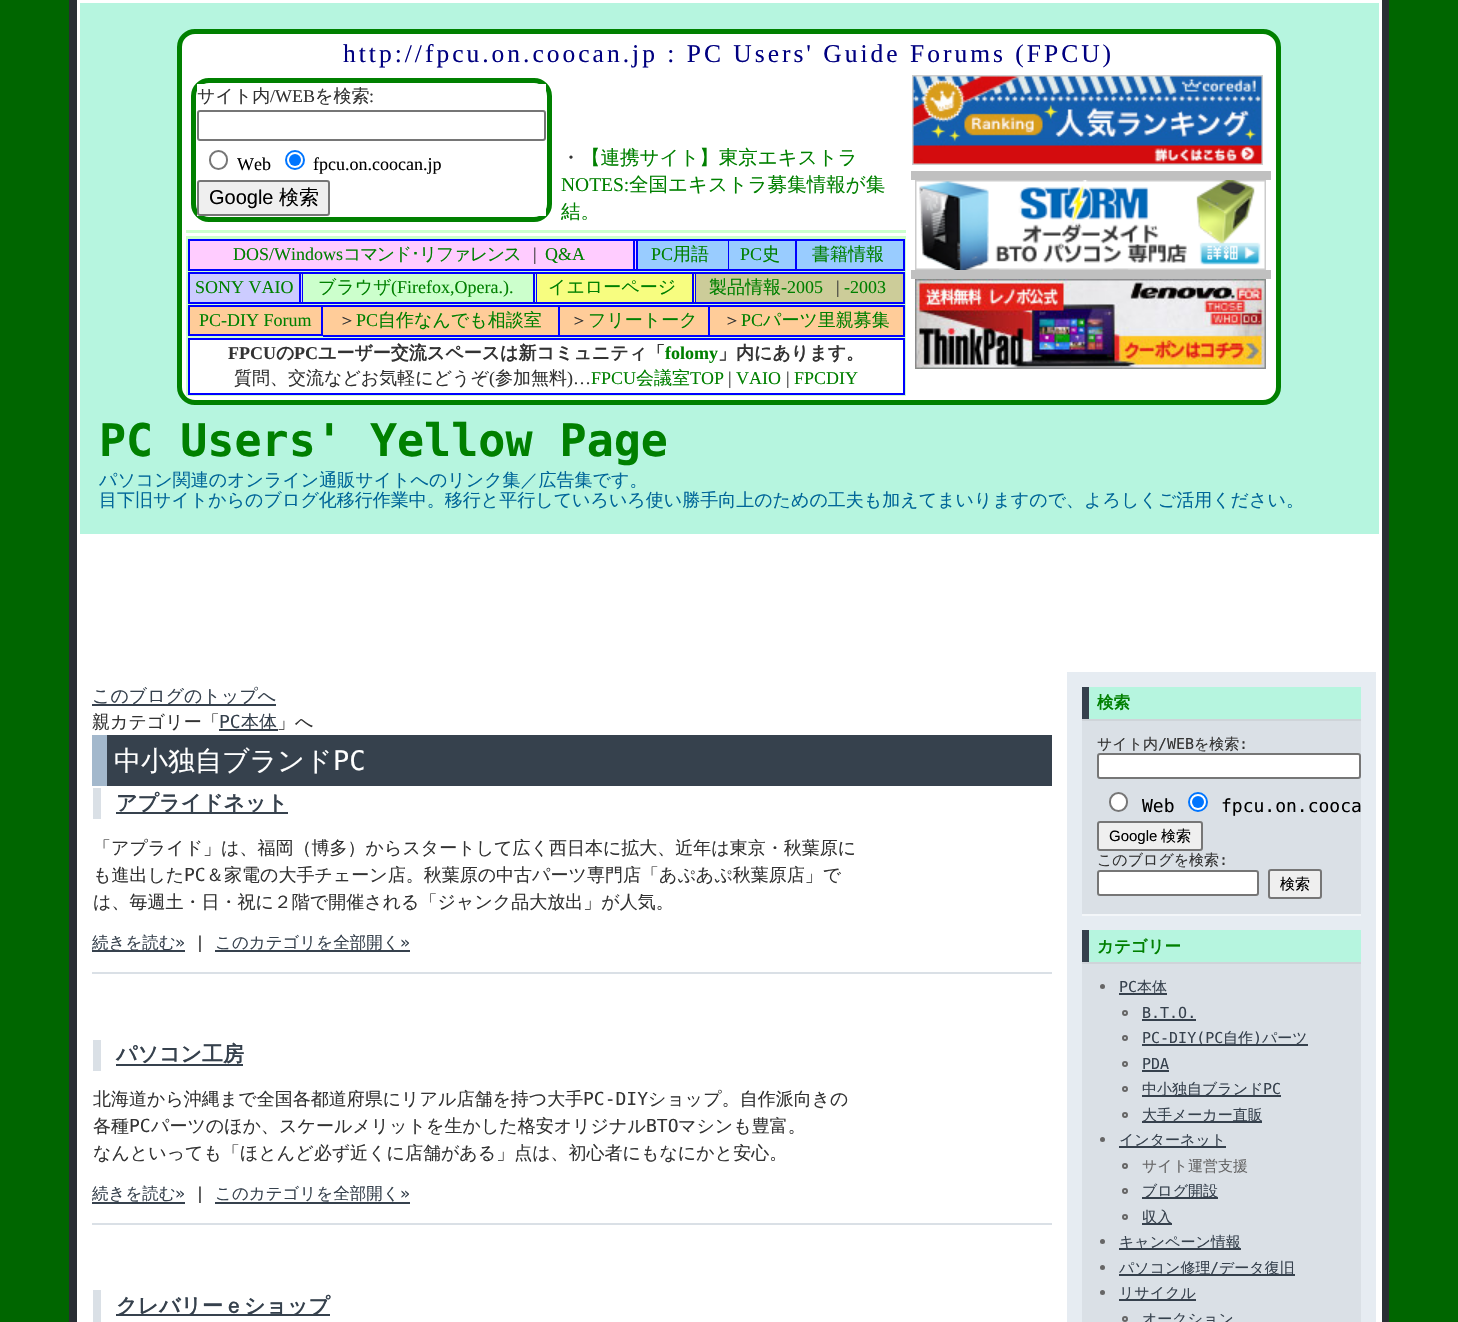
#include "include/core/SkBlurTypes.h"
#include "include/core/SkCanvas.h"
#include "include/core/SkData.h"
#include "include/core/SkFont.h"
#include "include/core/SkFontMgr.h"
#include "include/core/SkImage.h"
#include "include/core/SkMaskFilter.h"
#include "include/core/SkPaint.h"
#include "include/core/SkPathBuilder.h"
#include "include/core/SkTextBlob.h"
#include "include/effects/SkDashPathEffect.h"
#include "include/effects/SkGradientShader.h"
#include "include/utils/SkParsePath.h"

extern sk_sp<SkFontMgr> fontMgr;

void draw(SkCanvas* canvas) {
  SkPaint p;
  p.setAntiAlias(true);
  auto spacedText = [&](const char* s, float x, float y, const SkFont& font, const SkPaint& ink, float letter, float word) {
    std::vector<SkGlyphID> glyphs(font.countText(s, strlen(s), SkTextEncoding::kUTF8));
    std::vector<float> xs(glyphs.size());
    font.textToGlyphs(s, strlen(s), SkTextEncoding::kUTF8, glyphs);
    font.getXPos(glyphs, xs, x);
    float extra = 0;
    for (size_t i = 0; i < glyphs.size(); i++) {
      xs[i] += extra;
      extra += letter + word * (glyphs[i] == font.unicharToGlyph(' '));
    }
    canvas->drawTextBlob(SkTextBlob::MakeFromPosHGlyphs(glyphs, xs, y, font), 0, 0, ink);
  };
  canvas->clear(SkColorSetRGB(0, 102, 0));
  p.setColor(SK_ColorWHITE);
  canvas->drawRect(SkRect::MakeLTRB(77, 534, 1382, 1322), p);
  p.setColor(SkColorSetRGB(41, 46, 51));
  canvas->drawRect(SkRect::MakeLTRB(1382, 0, 1389, 1322), p);
  canvas->drawRect(SkRect::MakeLTRB(69, 0, 77, 1322), p);
  p.setColor(SkColorSetRGB(182, 245, 223));
  canvas->drawRect(SkRect::MakeLTRB(80, 3, 1379, 534), p);
  p.setColor(SK_ColorWHITE);
  canvas->drawRect(SkRect::MakeLTRB(77, 0, 1382, 3), p);
  canvas->drawRect(SkRect::MakeLTRB(1379, 0, 1382, 534), p);
  canvas->drawRect(SkRect::MakeLTRB(77, 0, 80, 534), p);
  canvas->drawRoundRect(SkRect::MakeLTRB(179.5f, 31.5f, 1278.5f, 402.5f), 15.5f, 15.5f, p);
  p.setStyle(SkPaint::kStroke_Style);
  p.setStrokeWidth(5);
  p.setColor(SkColorSetRGB(0, 128, 0));
  canvas->drawRoundRect(SkRect::MakeLTRB(179.5f, 31.5f, 1278.5f, 402.5f), 15.5f, 15.5f, p);
  canvas->drawRoundRect(SkRect::MakeLTRB(193.5f, 80.5f, 549.5f, 219.5f), 15.5f, 15.5f, p);
  p.setStyle(SkPaint::kFill_Style);
  p.setColor(SK_ColorWHITE);
  canvas->drawRect(SkRect::MakeLTRB(197, 84, 546, 216), p);
  p.setStyle(SkPaint::kStroke_Style);
  p.setStrokeWidth(2);
  p.setColor(SkColorSetRGB(118, 118, 118));
  canvas->drawRoundRect(SkRect::MakeLTRB(198, 111, 545, 140), 2, 2, p);
  canvas->drawRoundRect(SkRect::MakeLTRB(210, 151, 227, 169), 8.5f, 8.5f, p);
  p.setColor(SkColorSetRGB(0, 117, 255));
  canvas->drawCircle(295, 160, 9, p);
  p.setStyle(SkPaint::kFill_Style);
  canvas->drawCircle(295, 160, 6, p);
  p.setColor(SkColorSetRGB(239, 239, 239));
  canvas->drawRoundRect(SkRect::MakeLTRB(198, 181, 329, 215), 2, 2, p);
  p.setStyle(SkPaint::kStroke_Style);
  p.setColor(SkColorSetRGB(118, 118, 118));
  canvas->drawRoundRect(SkRect::MakeLTRB(198, 181, 329, 215), 2, 2, p);
  canvas->drawImageRect(SkImages::DeferredFromEncodedData(SkData::MakeFromFileName("images/1.png")), SkRect::MakeLTRB(912, 75, 1263, 165), SkSamplingOptions());
  p.setStyle(SkPaint::kFill_Style);
  p.setColor(SkColorSetRGB(192, 192, 192));
  canvas->drawRect(SkRect::MakeLTRB(911, 171, 1271, 180), p);
  canvas->drawImageRect(SkImages::DeferredFromEncodedData(SkData::MakeFromFileName("images/2.png")), SkRect::MakeLTRB(915, 180, 1266, 270), SkSamplingOptions());
  canvas->drawRect(SkRect::MakeLTRB(911, 270, 1271, 279), p);
  canvas->drawImageRect(SkImages::DeferredFromEncodedData(SkData::MakeFromFileName("images/3.png")), SkRect::MakeLTRB(915, 279, 1266, 369), SkSamplingOptions());
  p.setColor(SkColorSetRGB(204, 255, 204));
  canvas->drawRect(SkRect::MakeLTRB(186, 230, 906, 233), p);
  canvas->drawRect(SkRect::MakeLTRB(186, 236, 906, 396), p);
  p.setColor(SkColorSetRGB(255, 204, 255));
  canvas->drawRect(SkRect::MakeLTRB(190, 241, 636, 269), p);
  p.setColor(SkColorSetRGB(0, 0, 255));
  canvas->drawRect(SkRect::MakeLTRB(188, 239, 905, 241), p);
  canvas->drawRect(SkRect::MakeLTRB(633, 239, 635, 270), p);
  canvas->drawRect(SkRect::MakeLTRB(636, 239, 638, 270), p);
  canvas->drawRect(SkRect::MakeLTRB(188, 269, 638, 271), p);
  canvas->drawRect(SkRect::MakeLTRB(188, 239, 190, 270), p);
  p.setColor(SkColorSetRGB(153, 204, 255));
  canvas->drawRect(SkRect::MakeLTRB(638, 241, 728, 269), p);
  p.setColor(SkColorSetRGB(0, 0, 255));
  canvas->drawRect(SkRect::MakeLTRB(728, 239, 729, 270), p);
  canvas->drawRect(SkRect::MakeLTRB(638, 269, 729, 271), p);
  p.setColor(SkColorSetRGB(153, 204, 255));
  canvas->drawRect(SkRect::MakeLTRB(729, 241, 795, 269), p);
  p.setColor(SkColorSetRGB(0, 0, 255));
  canvas->drawRect(SkRect::MakeLTRB(795, 239, 797, 270), p);
  canvas->drawRect(SkRect::MakeLTRB(729, 269, 797, 271), p);
  p.setColor(SkColorSetRGB(153, 204, 255));
  canvas->drawRect(SkRect::MakeLTRB(797, 241, 903, 269), p);
  p.setColor(SkColorSetRGB(0, 0, 255));
  canvas->drawRect(SkRect::MakeLTRB(903, 239, 905, 270), p);
  canvas->drawRect(SkRect::MakeLTRB(797, 269, 905, 271), p);
  p.setColor(SkColorSetRGB(204, 204, 255));
  canvas->drawRect(SkRect::MakeLTRB(190, 274, 302, 302), p);
  p.setColor(SkColorSetRGB(0, 0, 255));
  canvas->drawRect(SkRect::MakeLTRB(188, 272, 905, 274), p);
  canvas->drawRect(SkRect::MakeLTRB(299, 272, 301, 303), p);
  canvas->drawRect(SkRect::MakeLTRB(302, 272, 303, 303), p);
  canvas->drawRect(SkRect::MakeLTRB(188, 302, 303, 304), p);
  canvas->drawRect(SkRect::MakeLTRB(188, 272, 190, 303), p);
  canvas->drawRect(SkRect::MakeLTRB(533, 272, 535, 303), p);
  canvas->drawRect(SkRect::MakeLTRB(536, 272, 537, 303), p);
  canvas->drawRect(SkRect::MakeLTRB(303, 302, 537, 304), p);
  p.setColor(SkColorSetRGB(247, 253, 128));
  canvas->drawRect(SkRect::MakeLTRB(537, 274, 695, 302), p);
  p.setColor(SkColorSetRGB(0, 0, 255));
  canvas->drawRect(SkRect::MakeLTRB(692, 272, 694, 303), p);
  canvas->drawRect(SkRect::MakeLTRB(695, 272, 696, 303), p);
  canvas->drawRect(SkRect::MakeLTRB(537, 302, 696, 304), p);
  p.setColor(SkColorSetRGB(204, 204, 153));
  canvas->drawRect(SkRect::MakeLTRB(696, 274, 903, 302), p);
  p.setColor(SkColorSetRGB(0, 0, 255));
  canvas->drawRect(SkRect::MakeLTRB(903, 272, 905, 303), p);
  canvas->drawRect(SkRect::MakeLTRB(696, 302, 905, 304), p);
  p.setColor(SkColorSetRGB(255, 204, 153));
  canvas->drawRect(SkRect::MakeLTRB(189, 306, 322, 335), p);
  p.setStyle(SkPaint::kStroke_Style);
  p.setColor(SkColorSetRGB(0, 0, 255));
  canvas->drawRect(SkRect::MakeLTRB(189, 306, 322, 335), p);
  p.setStyle(SkPaint::kFill_Style);
  p.setColor(SkColorSetRGB(255, 204, 153));
  canvas->drawRect(SkRect::MakeLTRB(323, 307, 558, 335), p);
  p.setColor(SkColorSetRGB(0, 0, 255));
  canvas->drawRect(SkRect::MakeLTRB(323, 305, 905, 307), p);
  canvas->drawRect(SkRect::MakeLTRB(558, 305, 560, 336), p);
  canvas->drawRect(SkRect::MakeLTRB(323, 335, 560, 337), p);
  p.setColor(SkColorSetRGB(255, 204, 153));
  canvas->drawRect(SkRect::MakeLTRB(560, 307, 708, 335), p);
  p.setColor(SkColorSetRGB(0, 0, 255));
  canvas->drawRect(SkRect::MakeLTRB(708, 305, 710, 336), p);
  canvas->drawRect(SkRect::MakeLTRB(560, 335, 710, 337), p);
  p.setColor(SkColorSetRGB(255, 204, 153));
  canvas->drawRect(SkRect::MakeLTRB(710, 307, 903, 335), p);
  p.setColor(SkColorSetRGB(0, 0, 255));
  canvas->drawRect(SkRect::MakeLTRB(903, 305, 905, 336), p);
  canvas->drawRect(SkRect::MakeLTRB(710, 335, 905, 337), p);
  p.setColor(SK_ColorWHITE);
  canvas->drawRect(SkRect::MakeLTRB(189, 339, 904, 394), p);
  p.setStyle(SkPaint::kStroke_Style);
  p.setColor(SkColorSetRGB(0, 0, 255));
  canvas->drawRect(SkRect::MakeLTRB(189, 339, 904, 394), p);
  p.setStyle(SkPaint::kFill_Style);
  p.setColor(SkColorSetRGB(54, 65, 77));
  canvas->drawRect(SkRect::MakeLTRB(92, 704, 276, 706), p);
  canvas->drawRect(SkRect::MakeLTRB(219, 729, 278, 731), p);
  canvas->drawRect(SkRect::MakeLTRB(107, 735, 1052, 786), p);
  p.setColor(SkColorSetRGB(163, 184, 204));
  canvas->drawRect(SkRect::MakeLTRB(92, 735, 107, 786), p);
  p.setColor(SkColorSetRGB(218, 224, 230));
  canvas->drawRect(SkRect::MakeLTRB(93, 788, 101, 819), p);
  p.setColor(SkColorSetRGB(54, 65, 77));
  canvas->drawRect(SkRect::MakeLTRB(116, 812, 288, 814), p);
  canvas->drawRect(SkRect::MakeLTRB(92, 950, 185, 952), p);
  canvas->drawRect(SkRect::MakeLTRB(215, 950, 410, 952), p);
  p.setColor(SkColorSetRGB(218, 224, 230));
  canvas->drawRect(SkRect::MakeLTRB(92, 972, 1052, 974), p);
  canvas->drawRect(SkRect::MakeLTRB(93, 1040, 101, 1071), p);
  p.setColor(SkColorSetRGB(54, 65, 77));
  canvas->drawRect(SkRect::MakeLTRB(116, 1064, 243, 1066), p);
  canvas->drawRect(SkRect::MakeLTRB(92, 1202, 185, 1204), p);
  canvas->drawRect(SkRect::MakeLTRB(215, 1202, 410, 1204), p);
  p.setColor(SkColorSetRGB(218, 224, 230));
  canvas->drawRect(SkRect::MakeLTRB(92, 1223, 1052, 1225), p);
  canvas->drawRect(SkRect::MakeLTRB(93, 1290, 101, 1322), p);
  p.setColor(SkColorSetRGB(54, 65, 77));
  canvas->drawRect(SkRect::MakeLTRB(116, 1314, 330, 1316), p);
  p.setColor(SkColorSetRGB(230, 236, 242));
  canvas->drawRect(SkRect::MakeLTRB(1067, 672, 1376, 1322), p);
  p.setColor(SkColorSetRGB(218, 224, 230));
  canvas->drawRect(SkRect::MakeLTRB(1082, 721, 1361, 914), p);
  p.setColor(SkColorSetRGB(243, 246, 249));
  canvas->drawRect(SkRect::MakeLTRB(1082, 914, 1361, 916), p);
  p.setColor(SkColorSetRGB(182, 245, 223));
  canvas->drawRect(SkRect::MakeLTRB(1089, 687, 1361, 719), p);
  p.setColor(SkColorSetRGB(54, 65, 77));
  canvas->drawRect(SkRect::MakeLTRB(1082, 687, 1089, 719), p);
  p.setColor(SkColorSetRGB(207, 212, 217));
  canvas->drawRect(SkRect::MakeLTRB(1082, 719, 1361, 721), p);
  p.setColor(SK_ColorWHITE);
  canvas->drawRoundRect(SkRect::MakeLTRB(1098, 754, 1360, 778), 2, 2, p);
  p.setStyle(SkPaint::kStroke_Style);
  p.setColor(SkColorSetRGB(118, 118, 118));
  canvas->drawRoundRect(SkRect::MakeLTRB(1098, 754, 1360, 778), 2, 2, p);
  p.setStyle(SkPaint::kFill_Style);
  p.setColor(SK_ColorWHITE);
  canvas->drawRoundRect(SkRect::MakeLTRB(1110, 793, 1127, 811), 8.5f, 8.5f, p);
  p.setStyle(SkPaint::kStroke_Style);
  p.setColor(SkColorSetRGB(118, 118, 118));
  canvas->drawRoundRect(SkRect::MakeLTRB(1110, 793, 1127, 811), 8.5f, 8.5f, p);
  p.setStyle(SkPaint::kFill_Style);
  p.setColor(SK_ColorWHITE);
  canvas->drawCircle(1198, 802, 9, p);
  p.setStyle(SkPaint::kStroke_Style);
  p.setColor(SkColorSetRGB(0, 117, 255));
  canvas->drawCircle(1198, 802, 9, p);
  p.setStyle(SkPaint::kFill_Style);
  canvas->drawCircle(1198, 802, 6, p);
  p.setColor(SkColorSetRGB(239, 239, 239));
  canvas->drawRoundRect(SkRect::MakeLTRB(1098, 822, 1202, 850), 2, 2, p);
  p.setStyle(SkPaint::kStroke_Style);
  p.setColor(SkColorSetRGB(118, 118, 118));
  canvas->drawRoundRect(SkRect::MakeLTRB(1098, 822, 1202, 850), 2, 2, p);
  p.setStyle(SkPaint::kFill_Style);
  p.setColor(SK_ColorWHITE);
  canvas->drawRoundRect(SkRect::MakeLTRB(1098, 871, 1258, 895), 2, 2, p);
  p.setStyle(SkPaint::kStroke_Style);
  p.setColor(SkColorSetRGB(118, 118, 118));
  canvas->drawRoundRect(SkRect::MakeLTRB(1098, 871, 1258, 895), 2, 2, p);
  p.setStyle(SkPaint::kFill_Style);
  p.setColor(SkColorSetRGB(239, 239, 239));
  canvas->drawRoundRect(SkRect::MakeLTRB(1269, 870, 1321, 898), 2, 2, p);
  p.setStyle(SkPaint::kStroke_Style);
  p.setColor(SkColorSetRGB(118, 118, 118));
  canvas->drawRoundRect(SkRect::MakeLTRB(1269, 870, 1321, 898), 2, 2, p);
  p.setStyle(SkPaint::kFill_Style);
  p.setColor(SkColorSetRGB(218, 224, 230));
  canvas->drawRect(SkRect::MakeLTRB(1082, 964, 1361, 1322), p);
  p.setColor(SkColorSetRGB(182, 245, 223));
  canvas->drawRect(SkRect::MakeLTRB(1089, 930, 1361, 962), p);
  p.setColor(SkColorSetRGB(54, 65, 77));
  canvas->drawRect(SkRect::MakeLTRB(1082, 930, 1089, 962), p);
  p.setColor(SkColorSetRGB(207, 212, 217));
  canvas->drawRect(SkRect::MakeLTRB(1082, 962, 1361, 964), p);
  p.setColor(SkColorSetRGB(102, 102, 102));
  canvas->drawCircle(1102.5f, 986.5f, 2.5f, p);
  p.setColor(SkColorSetRGB(54, 65, 77));
  canvas->drawRect(SkRect::MakeLTRB(1119, 993, 1167, 995), p);
  p.setStyle(SkPaint::kStroke_Style);
  p.setColor(SkColorSetRGB(102, 102, 102));
  canvas->drawCircle(1125, 1013, 2, p);
  p.setStyle(SkPaint::kFill_Style);
  p.setColor(SkColorSetRGB(54, 65, 77));
  canvas->drawRect(SkRect::MakeLTRB(1142, 1019, 1196, 1021), p);
  p.setStyle(SkPaint::kStroke_Style);
  p.setColor(SkColorSetRGB(102, 102, 102));
  canvas->drawCircle(1125, 1038, 2, p);
  p.setStyle(SkPaint::kFill_Style);
  p.setColor(SkColorSetRGB(54, 65, 77));
  canvas->drawRect(SkRect::MakeLTRB(1142, 1044, 1308, 1046), p);
  p.setStyle(SkPaint::kStroke_Style);
  p.setColor(SkColorSetRGB(102, 102, 102));
  canvas->drawCircle(1125, 1064, 2, p);
  p.setStyle(SkPaint::kFill_Style);
  p.setColor(SkColorSetRGB(54, 65, 77));
  canvas->drawRect(SkRect::MakeLTRB(1142, 1070, 1169, 1072), p);
  p.setStyle(SkPaint::kStroke_Style);
  p.setColor(SkColorSetRGB(102, 102, 102));
  canvas->drawCircle(1125, 1089, 2, p);
  p.setStyle(SkPaint::kFill_Style);
  p.setColor(SkColorSetRGB(54, 65, 77));
  canvas->drawRect(SkRect::MakeLTRB(1142, 1095, 1281, 1097), p);
  p.setStyle(SkPaint::kStroke_Style);
  p.setColor(SkColorSetRGB(102, 102, 102));
  canvas->drawCircle(1125, 1115, 2, p);
  p.setStyle(SkPaint::kFill_Style);
  p.setColor(SkColorSetRGB(54, 65, 77));
  canvas->drawRect(SkRect::MakeLTRB(1142, 1121, 1262, 1123), p);
  p.setColor(SkColorSetRGB(102, 102, 102));
  canvas->drawCircle(1102.5f, 1139.5f, 2.5f, p);
  p.setColor(SkColorSetRGB(54, 65, 77));
  canvas->drawRect(SkRect::MakeLTRB(1119, 1146, 1226, 1148), p);
  p.setStyle(SkPaint::kStroke_Style);
  p.setColor(SkColorSetRGB(102, 102, 102));
  canvas->drawCircle(1125, 1166, 2, p);
  canvas->drawCircle(1125, 1191, 2, p);
  p.setStyle(SkPaint::kFill_Style);
  p.setColor(SkColorSetRGB(54, 65, 77));
  canvas->drawRect(SkRect::MakeLTRB(1142, 1197, 1218, 1199), p);
  p.setStyle(SkPaint::kStroke_Style);
  p.setColor(SkColorSetRGB(102, 102, 102));
  canvas->drawCircle(1125, 1217, 2, p);
  p.setStyle(SkPaint::kFill_Style);
  p.setColor(SkColorSetRGB(54, 65, 77));
  canvas->drawRect(SkRect::MakeLTRB(1142, 1223, 1172, 1225), p);
  p.setColor(SkColorSetRGB(102, 102, 102));
  canvas->drawCircle(1102.5f, 1241.5f, 2.5f, p);
  p.setColor(SkColorSetRGB(54, 65, 77));
  canvas->drawRect(SkRect::MakeLTRB(1119, 1248, 1241, 1250), p);
  p.setColor(SkColorSetRGB(102, 102, 102));
  canvas->drawCircle(1102.5f, 1267.5f, 2.5f, p);
  p.setColor(SkColorSetRGB(54, 65, 77));
  canvas->drawRect(SkRect::MakeLTRB(1119, 1274, 1295, 1276), p);
  p.setColor(SkColorSetRGB(102, 102, 102));
  canvas->drawCircle(1102.5f, 1292.5f, 2.5f, p);
  p.setColor(SkColorSetRGB(54, 65, 77));
  canvas->drawRect(SkRect::MakeLTRB(1119, 1299, 1196, 1301), p);
  p.setStyle(SkPaint::kStroke_Style);
  p.setColor(SkColorSetRGB(102, 102, 102));
  canvas->drawCircle(1125, 1319, 2, p);
  SkFont font1(fontMgr->matchFamilyStyle("Liberation Serif", SkFontStyle::Normal()), 25.5f);
  font1.setSubpixel(true);
  p.setStyle(SkPaint::kFill_Style);
  p.setColor(SkColorSetRGB(0, 0, 128));
  spacedText("http://fpcu.on.coocan.jp : PC Users' Guide Forums (FPCU)", 343, 62, font1, p, 3, 0);
  SkFont font2(fontMgr->matchFamilyStyle("WenQuanYi Zen Hei", SkFontStyle(500, SkFontStyle::kNormal_Width, SkFontStyle::kUpright_Slant)), 18);
  font2.setSubpixel(true);
  p.setColor(SkColorSetRGB(51, 51, 51));
  canvas->drawString("サイト内", 197, 102, font2, p);
  SkFont font3(fontMgr->matchFamilyStyle("Liberation Serif", SkFontStyle::Normal()), 18);
  font3.setSubpixel(true);
  canvas->drawString("/WEB", 270, 102, font3, p);
  canvas->drawString("を検索", 315, 102, font2, p);
  canvas->drawString(":", 369, 102, font3, p);
  p.setColor(SK_ColorBLACK);
  canvas->drawString("Web", 237, 170, font3, p);
  canvas->drawString("fpcu.on.coocan.jp", 313, 170, font3, p);
  SkFont font4(fontMgr->matchFamilyStyle("Liberation Sans", SkFontStyle::Normal()), 20);
  font4.setSubpixel(true);
  canvas->drawString("Google", 209, 204, font4, p);
  SkFont font5(fontMgr->matchFamilyStyle("WenQuanYi Zen Hei", SkFontStyle(500, SkFontStyle::kNormal_Width, SkFontStyle::kUpright_Slant)), 20);
  font5.setSubpixel(true);
  canvas->drawString("検索", 279, 204, font5, p);
  SkFont font6(fontMgr->matchFamilyStyle("WenQuanYi Zen Hei", SkFontStyle(500, SkFontStyle::kNormal_Width, SkFontStyle::kUpright_Slant)), 19.5f);
  font6.setSubpixel(true);
  p.setColor(SkColorSetRGB(51, 51, 51));
  canvas->drawString("・", 561, 164, font6, p);
  p.setColor(SkColorSetRGB(0, 128, 0));
  canvas->drawString("【連携サイト】東京エキストラ", 581, 164, font6, p);
  SkFont font7(fontMgr->matchFamilyStyle("Liberation Serif", SkFontStyle::Normal()), 19.5f);
  font7.setSubpixel(true);
  canvas->drawString("NOTES:", 561, 191, font7, p);
  canvas->drawString("全国エキストラ募集情報が集", 629, 191, font6, p);
  canvas->drawString("結。", 561, 218, font6, p);
  canvas->drawString("DOS/Windows", 233, 260, font3, p);
  spacedText("コマンド", 343, 260, font2, p, -1.5f, 0);
  SkFont font8(fontMgr->matchFamilyStyle("IPAGothic", SkFontStyle::Normal()), 18);
  font8.setSubpixel(true);
  spacedText("･", 411, 260, font8, p, -1.5f, 0);
  spacedText("リファレンス", 419, 260, font2, p, -1.5f, 0);
  p.setColor(SkColorSetRGB(51, 51, 51));
  canvas->drawString("|", 533, 260, font3, p);
  p.setColor(SkColorSetRGB(0, 128, 0));
  canvas->drawString("Q&A", 545, 260, font3, p);
  canvas->drawString("PC", 651, 260, font3, p);
  canvas->drawString("用語", 673, 260, font2, p);
  canvas->drawString("PC", 740, 260, font3, p);
  canvas->drawString("史", 762, 260, font2, p);
  canvas->drawString("書籍情報", 812, 260, font2, p);
  canvas->drawString("SONY VAIO", 195, 293, font3, p);
  canvas->drawString("ブラウザ", 318, 293, font2, p);
  canvas->drawString("(Firefox,Opera.).", 391, 293, font3, p);
  canvas->drawString("イエローページ", 548, 293, font2, p);
  canvas->drawString("製品情報", 709, 293, font2, p);
  canvas->drawString("-2005", 781, 293, font3, p);
  p.setColor(SkColorSetRGB(51, 51, 51));
  canvas->drawString("|", 836, 293, font3, p);
  p.setColor(SkColorSetRGB(0, 128, 0));
  canvas->drawString("-2003", 844, 293, font3, p);
  canvas->drawString("PC-DIY Forum", 199, 326, font3, p);
  p.setColor(SkColorSetRGB(51, 51, 51));
  canvas->drawString("＞", 338, 326, font2, p);
  p.setColor(SkColorSetRGB(0, 128, 0));
  canvas->drawString("PC", 356, 326, font3, p);
  canvas->drawString("自作なんでも相談室", 378, 326, font2, p);
  p.setColor(SkColorSetRGB(51, 51, 51));
  canvas->drawString("＞", 570, 326, font2, p);
  p.setColor(SkColorSetRGB(0, 128, 0));
  canvas->drawString("フリートーク", 588, 326, font2, p);
  p.setColor(SkColorSetRGB(51, 51, 51));
  canvas->drawString("＞", 723, 326, font2, p);
  p.setColor(SkColorSetRGB(0, 128, 0));
  canvas->drawString("PC", 741, 326, font3, p);
  canvas->drawString("パーツ里親募集", 763, 326, font2, p);
  SkFont font9(fontMgr->matchFamilyStyle("Liberation Serif", SkFontStyle::Bold()), 18);
  font9.setSubpixel(true);
  p.setColor(SkColorSetRGB(51, 51, 51));
  canvas->drawString("FPCU", 228, 359, font9, p);
  SkFont font10(fontMgr->matchFamilyStyle("WenQuanYi Zen Hei", SkFontStyle::Bold()), 18);
  font10.setSubpixel(true);
  canvas->drawString("の", 276, 359, font10, p);
  canvas->drawString("PC", 294, 359, font9, p);
  canvas->drawString("ユーザー交流スペースは新コミュニティ「", 318, 359, font10, p);
  p.setColor(SkColorSetRGB(0, 128, 0));
  canvas->drawString("folomy", 665, 359, font9, p);
  p.setColor(SkColorSetRGB(51, 51, 51));
  canvas->drawString("」内にあります。", 718, 359, font10, p);
  canvas->drawString("質問、交流などお気軽にどうぞ", 234, 384, font2, p);
  canvas->drawString("(", 489, 384, font3, p);
  canvas->drawString("参加無料", 495, 384, font2, p);
  canvas->drawString(")…", 567, 384, font3, p);
  p.setColor(SkColorSetRGB(0, 128, 0));
  canvas->drawString("FPCU", 591, 384, font3, p);
  canvas->drawString("会議室", 636, 384, font2, p);
  canvas->drawString("TOP", 690, 384, font3, p);
  p.setColor(SkColorSetRGB(51, 51, 51));
  canvas->drawString("|", 728, 384, font3, p);
  p.setColor(SkColorSetRGB(0, 128, 0));
  canvas->drawString("VAIO", 736, 384, font3, p);
  p.setColor(SkColorSetRGB(51, 51, 51));
  canvas->drawString("|", 786, 384, font3, p);
  p.setColor(SkColorSetRGB(0, 128, 0));
  canvas->drawString("FPCDIY", 794, 384, font3, p);
  SkFont font11(fontMgr->matchFamilyStyle("DejaVu Sans Mono", SkFontStyle::Bold()), 45);
  font11.setSubpixel(true);
  canvas->drawString("PC Users' Yellow Page", 99, 456, font11, p);
  p.setColor(SkColorSetRGB(0, 102, 153));
  canvas->drawString("パソコン関連のオンライン通販サイトへのリンク集／広告集です。", 99, 486, font2, p);
  canvas->drawString("目下旧サイトからのブログ化移行作業中。移行と平行していろいろ使い勝手向上のための工夫も加えてまいりますので、よろしくご活用ください。", 99, 506, font2, p);
  p.setColor(SkColorSetRGB(54, 65, 77));
  canvas->drawString("このブログのトップへ", 92, 702, font2, p);
  p.setColor(SkColorSetRGB(51, 51, 51));
  canvas->drawString("親カテゴリー「", 92, 728, font2, p);
  SkFont font12(fontMgr->matchFamilyStyle("DejaVu Sans Mono", SkFontStyle::Normal()), 18);
  font12.setSubpixel(true);
  p.setColor(SkColorSetRGB(54, 65, 77));
  canvas->drawString("PC", 219, 728, font12, p);
  canvas->drawString("本体", 241, 728, font2, p);
  p.setColor(SkColorSetRGB(51, 51, 51));
  canvas->drawString("」へ", 277, 728, font2, p);
  SkFont font13(fontMgr->matchFamilyStyle("WenQuanYi Zen Hei", SkFontStyle(500, SkFontStyle::kNormal_Width, SkFontStyle::kUpright_Slant)), 27);
  font13.setSubpixel(true);
  p.setColor(SK_ColorWHITE);
  canvas->drawString("中小独自ブランド", 114, 770, font13, p);
  SkFont font14(fontMgr->matchFamilyStyle("DejaVu Sans Mono", SkFontStyle::Normal()), 27);
  font14.setSubpixel(true);
  canvas->drawString("PC", 333, 770, font14, p);
  SkFont font15(fontMgr->matchFamilyStyle("WenQuanYi Zen Hei", SkFontStyle::Bold()), 21);
  font15.setSubpixel(true);
  p.setColor(SkColorSetRGB(54, 65, 77));
  canvas->drawString("アプライドネット", 116, 810, font15, p);
  p.setColor(SkColorSetRGB(51, 51, 51));
  canvas->drawString("「アプライド」は、福岡（博多）からスタートして広く西日本に拡大、近年は東京・秋葉原に", 93, 854, font2, p);
  canvas->drawString("も進出した", 93, 881, font2, p);
  canvas->drawString("PC", 184, 881, font12, p);
  canvas->drawString("＆家電の大手チェーン店。秋葉原の中古パーツ専門店「あぷあぷ秋葉原店」で", 206, 881, font2, p);
  canvas->drawString("は、毎週土・日・祝に２階で開催される「ジャンク品大放出」が人気。", 93, 908, font2, p);
  canvas->save();
  canvas->clipRect(SkRect::MakeLTRB(92, 786, 1052, 1008));
  SkFont font16(fontMgr->matchFamilyStyle("WenQuanYi Zen Hei", SkFontStyle(500, SkFontStyle::kNormal_Width, SkFontStyle::kUpright_Slant)), 16.5f);
  font16.setSubpixel(true);
  p.setColor(SkColorSetRGB(54, 65, 77));
  canvas->drawString("続きを読む", 92, 948, font16, p);
  canvas->restore();
  SkFont font17(fontMgr->matchFamilyStyle("DejaVu Sans Mono", SkFontStyle::Normal()), 16.5f);
  font17.setSubpixel(true);
  canvas->drawString("»", 175, 948, font17, p);
  p.setColor(SkColorSetRGB(51, 51, 51));
  canvas->drawString("|", 195, 948, font17, p);
  p.setColor(SkColorSetRGB(54, 65, 77));
  canvas->drawString("このカテゴリを全部開く", 215, 948, font16, p);
  canvas->drawString("»", 400, 948, font17, p);
  canvas->drawString("パソコン工房", 116, 1061, font15, p);
  p.setColor(SkColorSetRGB(51, 51, 51));
  canvas->drawString("北海道から沖縄まで全国各都道府県にリアル店舗を持つ大手", 93, 1105, font2, p);
  canvas->drawString("PC-DIY", 583, 1105, font12, p);
  canvas->drawString("ショップ。自作派向きの", 648, 1105, font2, p);
  canvas->drawString("各種", 93, 1132, font2, p);
  canvas->drawString("PC", 129, 1132, font12, p);
  canvas->drawString("パーツのほか、スケールメリットを生かした格安オリジナル", 151, 1132, font2, p);
  canvas->drawString("BTO", 646, 1132, font12, p);
  canvas->drawString("マシンも豊富。", 678, 1132, font2, p);
  canvas->drawString("なんといっても「ほとんど必ず近くに店舗がある」点は、初心者にもなにかと安心。", 93, 1159, font2, p);
  canvas->save();
  canvas->clipRect(SkRect::MakeLTRB(92, 1038, 1052, 1259));
  p.setColor(SkColorSetRGB(54, 65, 77));
  canvas->drawString("続きを読む", 92, 1199, font16, p);
  canvas->restore();
  canvas->drawString("»", 175, 1199, font17, p);
  p.setColor(SkColorSetRGB(51, 51, 51));
  canvas->drawString("|", 195, 1199, font17, p);
  p.setColor(SkColorSetRGB(54, 65, 77));
  canvas->drawString("このカテゴリを全部開く", 215, 1199, font16, p);
  canvas->drawString("»", 400, 1199, font17, p);
  canvas->drawString("クレバリーｅショップ", 116, 1313, font15, p);
  SkFont font18(fontMgr->matchFamilyStyle("WenQuanYi Zen Hei", SkFontStyle::Bold()), 16.5f);
  font18.setSubpixel(true);
  p.setColor(SkColorSetRGB(0, 128, 0));
  canvas->drawString("検索", 1097, 708, font18, p);
  SkFont font19(fontMgr->matchFamilyStyle("WenQuanYi Zen Hei", SkFontStyle(500, SkFontStyle::kNormal_Width, SkFontStyle::kUpright_Slant)), 15);
  font19.setSubpixel(true);
  p.setColor(SkColorSetRGB(51, 51, 51));
  canvas->drawString("サイト内", 1097, 749, font19, p);
  SkFont font20(fontMgr->matchFamilyStyle("DejaVu Sans Mono", SkFontStyle::Normal()), 15);
  font20.setSubpixel(true);
  canvas->drawString("/WEB", 1158, 749, font20, p);
  canvas->drawString("を検索", 1194, 749, font19, p);
  canvas->drawString(":", 1239, 749, font20, p);
  p.setColor(SK_ColorBLACK);
  canvas->drawString("Web", 1142, 812, font12, p);
  canvas->drawString("fpcu.on.cooca", 1221, 812, font12, p);
  SkFont font21(fontMgr->matchFamilyStyle("Liberation Sans", SkFontStyle::Normal()), 15);
  font21.setSubpixel(true);
  canvas->drawString("Google", 1109, 841, font21, p);
  canvas->drawString("検索", 1161, 841, font19, p);
  p.setColor(SkColorSetRGB(51, 51, 51));
  canvas->drawString("このブログを検索", 1097, 865, font19, p);
  canvas->drawString(":", 1219, 865, font20, p);
  p.setColor(SK_ColorBLACK);
  canvas->drawString("検索", 1280, 889, font19, p);
  p.setColor(SkColorSetRGB(0, 128, 0));
  canvas->drawString("カテゴリー", 1097, 952, font18, p);
  p.setColor(SkColorSetRGB(54, 65, 77));
  canvas->drawString("PC", 1119, 992, font20, p);
  canvas->drawString("本体", 1137, 992, font19, p);
  canvas->drawString("B.T.O.", 1142, 1018, font20, p);
  canvas->drawString("PC-DIY(PC", 1142, 1043, font20, p);
  canvas->drawString("自作", 1223, 1043, font19, p);
  canvas->drawString(")", 1253, 1043, font20, p);
  canvas->drawString("パーツ", 1262, 1043, font19, p);
  canvas->drawString("PDA", 1142, 1069, font20, p);
  canvas->drawString("中小独自ブランド", 1142, 1094, font19, p);
  canvas->drawString("PC", 1263, 1094, font20, p);
  canvas->drawString("大手メーカー直販", 1142, 1120, font19, p);
  canvas->drawString("インターネット", 1119, 1145, font19, p);
  p.setColor(SkColorSetRGB(102, 102, 102));
  canvas->drawString("サイト運営支援", 1142, 1171, font19, p);
  p.setColor(SkColorSetRGB(54, 65, 77));
  canvas->drawString("ブログ開設", 1142, 1196, font19, p);
  canvas->drawString("収入", 1142, 1222, font19, p);
  canvas->drawString("キャンペーン情報", 1119, 1247, font19, p);
  canvas->drawString("パソコン修理", 1119, 1273, font19, p);
  canvas->drawString("/", 1210, 1273, font20, p);
  canvas->drawString("データ復旧", 1219, 1273, font19, p);
  canvas->drawString("リサイクル", 1119, 1298, font19, p);
  canvas->drawString("オークション", 1142, 1324, font19, p);
}
